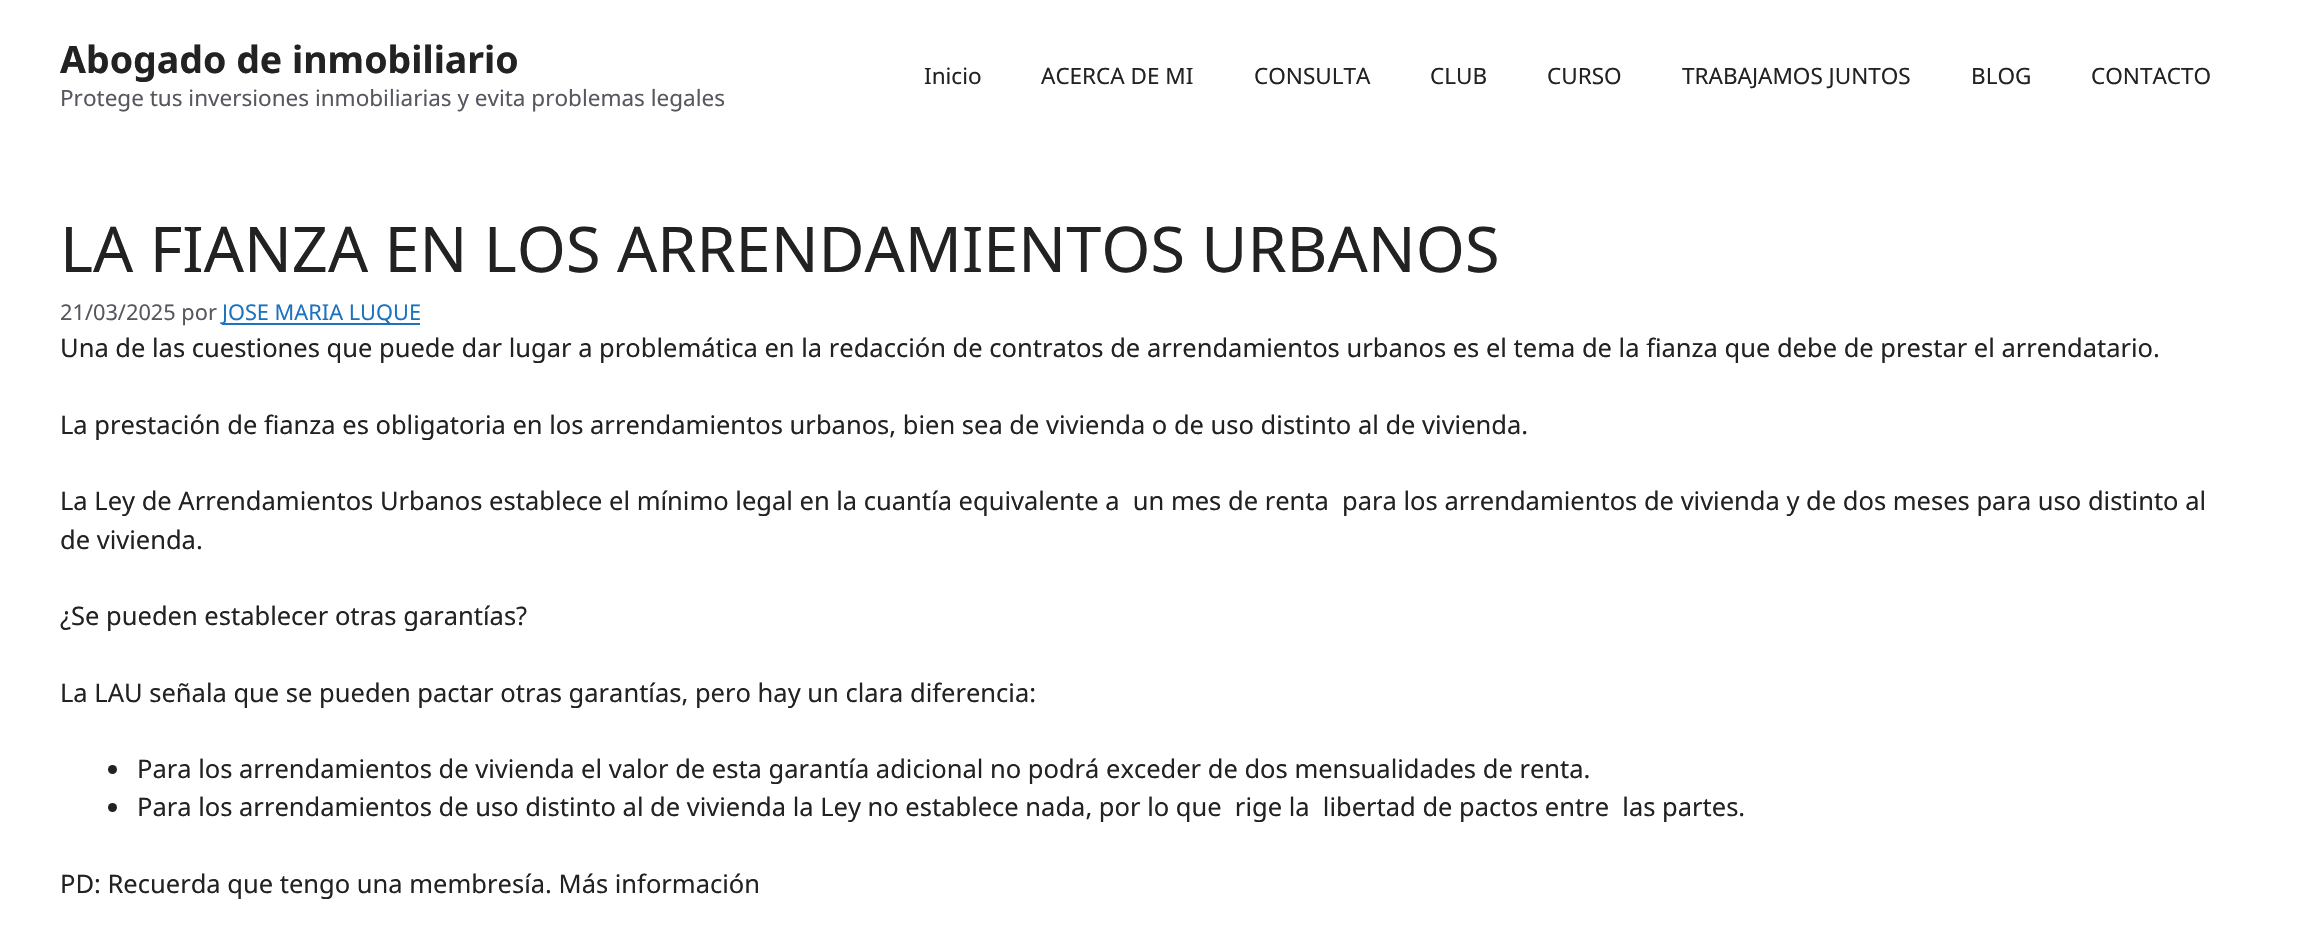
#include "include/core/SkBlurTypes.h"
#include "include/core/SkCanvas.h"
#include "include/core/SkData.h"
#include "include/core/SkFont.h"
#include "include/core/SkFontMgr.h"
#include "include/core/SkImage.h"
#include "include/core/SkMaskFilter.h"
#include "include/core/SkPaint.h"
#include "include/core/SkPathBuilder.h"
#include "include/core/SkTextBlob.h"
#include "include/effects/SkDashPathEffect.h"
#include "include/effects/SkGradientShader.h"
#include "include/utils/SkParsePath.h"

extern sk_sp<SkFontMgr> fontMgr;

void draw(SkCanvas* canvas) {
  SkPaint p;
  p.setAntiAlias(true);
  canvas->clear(SK_ColorWHITE);
  p.setColor(SkColorSetRGB(30, 115, 190));
  canvas->drawRect(SkRect::MakeLTRB(222, 323, 420, 325), p);
  p.setColor(SkColorSetRGB(34, 34, 34));
  canvas->drawCircle(112.5f, 769.5f, 4.5f, p);
  canvas->drawCircle(112.5f, 807.5f, 4.5f, p);
  SkFont font1(fontMgr->matchFamilyStyle("Noto Sans", SkFontStyle::Bold()), 37.5f);
  font1.setSubpixel(true);
  canvas->drawString("Abogado de inmobiliario", 60, 73, font1, p);
  SkFont font2(fontMgr->matchFamilyStyle("Noto Sans", SkFontStyle::Normal()), 22.5f);
  font2.setSubpixel(true);
  p.setColor(SkColorSetRGB(87, 87, 96));
  canvas->drawString("Protege tus inversiones inmobiliarias y evita problemas legales", 60, 106, font2, p);
  p.setColor(SkColorSetRGB(34, 34, 34));
  canvas->drawString("Inicio", 924, 84, font2, p);
  canvas->drawString("ACERCA DE MI", 1041, 84, font2, p);
  canvas->drawString("CONSULTA", 1254, 84, font2, p);
  canvas->drawString("CLUB", 1430, 84, font2, p);
  canvas->drawString("CURSO", 1547, 84, font2, p);
  canvas->drawString("TRABAJAMOS JUNTOS", 1682, 84, font2, p);
  canvas->drawString("BLOG", 1971, 84, font2, p);
  canvas->drawString("CONTACTO", 2091, 84, font2, p);
  SkFont font3(fontMgr->matchFamilyStyle("Noto Sans", SkFontStyle::Normal()), 63);
  font3.setSubpixel(true);
  canvas->drawString("LA FIANZA EN LOS ARRENDAMIENTOS URBANOS", 60, 272, font3, p);
  SkFont font4(fontMgr->matchFamilyStyle("Noto Sans", SkFontStyle::Normal()), 21.75f);
  font4.setSubpixel(true);
  p.setColor(SkColorSetRGB(87, 87, 96));
  canvas->drawString("21/03/2025 por", 60, 320, font4, p);
  p.setColor(SkColorSetRGB(30, 115, 190));
  canvas->drawString("JOSE MARIA LUQUE", 222, 320, font4, p);
  SkFont font5(fontMgr->matchFamilyStyle("Noto Sans", SkFontStyle::Normal()), 25.5f);
  font5.setSubpixel(true);
  p.setColor(SkColorSetRGB(34, 34, 34));
  canvas->drawString("Una de las cuestiones que puede dar lugar a problemática en la redacción de contratos de arrendamientos urbanos es el tema de la fianza que debe de prestar el arrendatario.", 60, 357, font5, p);
  canvas->drawString("La prestación de fianza es obligatoria en los arrendamientos urbanos, bien sea de vivienda o de uso distinto al de vivienda.", 60, 434, font5, p);
  canvas->drawString("La Ley de Arrendamientos Urbanos establece el mínimo legal en la cuantía equivalente a  un mes de renta  para los arrendamientos de vivienda y de dos meses para uso distinto al", 60, 510, font5, p);
  canvas->drawString("de vivienda.", 60, 549, font5, p);
  canvas->drawString("¿Se pueden establecer otras garantías?", 60, 625, font5, p);
  canvas->drawString("La LAU señala que se pueden pactar otras garantías, pero hay un clara diferencia:", 60, 702, font5, p);
  canvas->drawString("Para los arrendamientos de vivienda el valor de esta garantía adicional no podrá exceder de dos mensualidades de renta.", 137, 778, font5, p);
  canvas->drawString("Para los arrendamientos de uso distinto al de vivienda la Ley no establece nada, por lo que  rige la  libertad de pactos entre  las partes.", 137, 816, font5, p);
  canvas->drawString("PD: Recuerda que tengo una membresía. Más información", 60, 893, font5, p);
}
